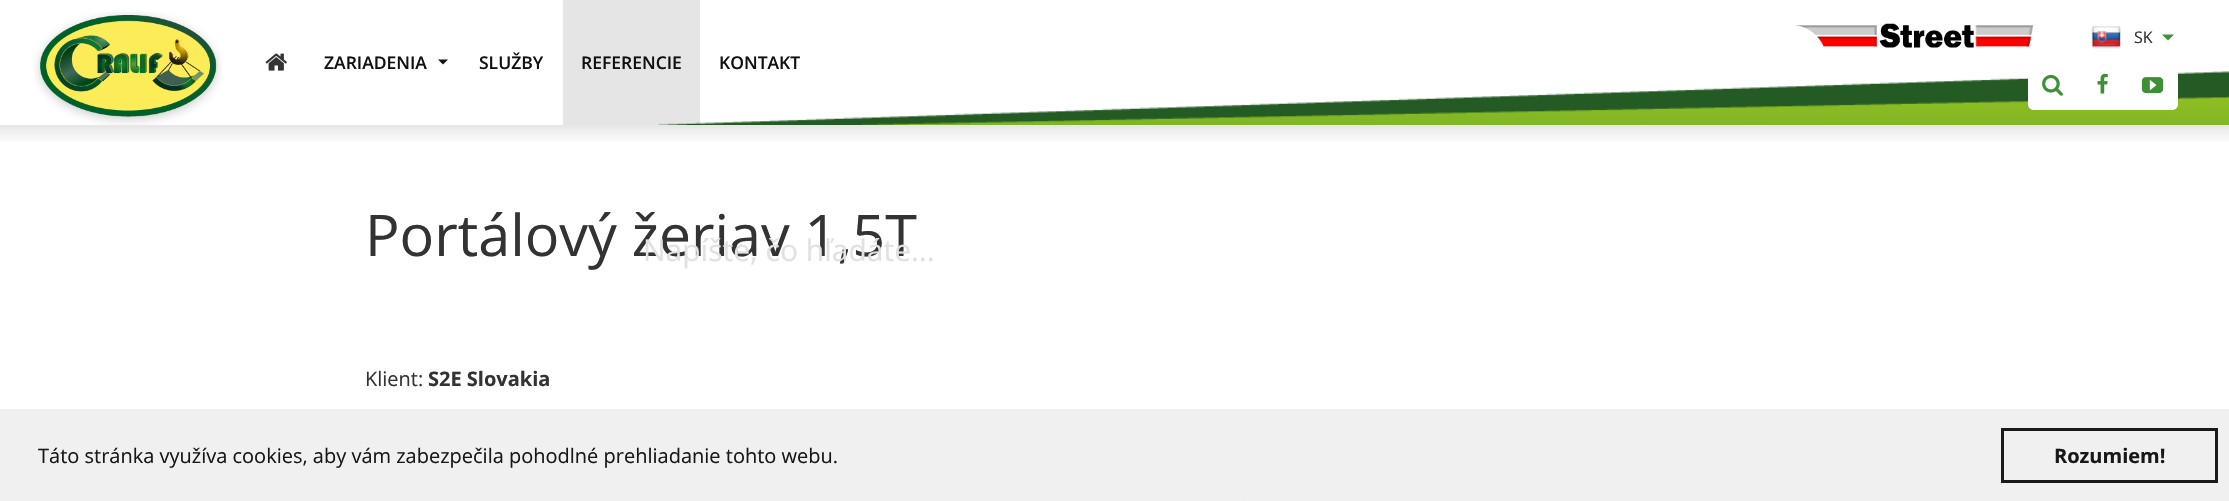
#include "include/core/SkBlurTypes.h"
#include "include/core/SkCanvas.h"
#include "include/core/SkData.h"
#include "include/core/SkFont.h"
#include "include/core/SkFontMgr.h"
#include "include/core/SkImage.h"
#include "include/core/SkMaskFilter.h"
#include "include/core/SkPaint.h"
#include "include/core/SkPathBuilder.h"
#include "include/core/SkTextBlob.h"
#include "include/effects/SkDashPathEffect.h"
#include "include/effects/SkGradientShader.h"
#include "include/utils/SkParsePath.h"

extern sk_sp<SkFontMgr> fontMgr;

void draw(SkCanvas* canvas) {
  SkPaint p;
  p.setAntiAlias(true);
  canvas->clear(SK_ColorWHITE);
  canvas->drawImageRect(SkImages::DeferredFromEncodedData(SkData::MakeFromFileName("images/1.png")), SkRect::MakeLTRB(658, 71, 2229, 125), SkSamplingOptions());
  canvas->drawImageRect(SkImages::DeferredFromEncodedData(SkData::MakeFromFileName("images/2.png")), SkRect::MakeLTRB(34, 12, 222, 125), SkSamplingOptions());
  canvas->drawImageRect(SkImages::DeferredFromEncodedData(SkData::MakeFromFileName("images/3.png")), SkRect::MakeLTRB(1795, 23, 2034, 48), SkSamplingOptions());
  canvas->drawImageRect(SkImages::DeferredFromEncodedData(SkData::MakeFromFileName("images/4.png")), SkRect::MakeLTRB(2091, 26, 2121, 49), SkSamplingOptions());
  p.setColor(SkColorSetRGB(62, 144, 55));
  canvas->drawPath(SkPathBuilder().moveTo(2162, 34.5f).lineTo(2168, 40.5f).lineTo(2174, 34.5f).close().detach(), p);
  canvas->drawImageRect(SkImages::DeferredFromEncodedData(SkData::MakeFromFileName("images/5.png")), SkRect::MakeLTRB(265, 53, 287, 71), SkSamplingOptions());
  p.setColor(SkColorSetRGB(17, 17, 17));
  canvas->drawPath(SkPathBuilder().moveTo(438, 59.5f).lineTo(443, 64.5f).lineTo(448, 59.5f).close().detach(), p);
  p.setColor(SkColorSetARGB(26, 0, 0, 0));
  canvas->drawRect(SkRect::MakeLTRB(563, 0, 700, 125), p);
  p.setColor(SK_ColorWHITE);
  canvas->drawPath(SkPathBuilder().moveTo(2034, 60).lineTo(2078, 60).lineTo(2078, 110).lineTo(2034, 110).cubicTo(2030.5f, 110, 2028, 107.5f, 2028, 104).lineTo(2028, 66).cubicTo(2028, 62.5f, 2030.5f, 60, 2034, 60).close().detach(), p);
  canvas->drawImageRect(SkImages::DeferredFromEncodedData(SkData::MakeFromFileName("images/6.png")), SkRect::MakeLTRB(2042, 74, 2063, 96), SkSamplingOptions());
  canvas->drawRect(SkRect::MakeLTRB(2078, 74, 2128, 110), p);
  canvas->drawImageRect(SkImages::DeferredFromEncodedData(SkData::MakeFromFileName("images/7.png")), SkRect::MakeLTRB(2097, 73, 2108, 94), SkSamplingOptions());
  canvas->drawPath(SkPathBuilder().moveTo(2128, 60).lineTo(2172, 60).cubicTo(2175.5f, 60, 2178, 62.5f, 2178, 66).lineTo(2178, 104).cubicTo(2178, 107.5f, 2175.5f, 110, 2172, 110).lineTo(2128, 110).close().detach(), p);
  canvas->drawImageRect(SkImages::DeferredFromEncodedData(SkData::MakeFromFileName("images/8.png")), SkRect::MakeLTRB(2141, 77, 2164, 94), SkSamplingOptions());
  {
    const SkColor colors[] = {SkColorSetRGB(230, 230, 230), SK_ColorWHITE};
    const float stops[] = {0, 1};
    const SkPoint ends[] = {{1115, 125}, {1115, 144}};
    p.setShader(SkGradientShader::MakeLinear(ends, colors, stops, 2, SkTileMode::kClamp));
    p.setAlpha(255);
  }
  canvas->drawRect(SkRect::MakeLTRB(0, 125, 2229, 142), p);
  p.setShader(nullptr);
  p.setColor(SkColorSetARGB(26, 0, 0, 0));
  p.setMaskFilter(SkMaskFilter::MakeBlur(kNormal_SkBlurStyle, 5));
  canvas->drawRect(SkRect::MakeLTRB(986, 493, 1244, 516), p);
  p.setMaskFilter(nullptr);
  p.setColor(SK_ColorWHITE);
  canvas->drawRect(SkRect::MakeLTRB(986, 491, 1244, 501), p);
  p.setColor(SkColorSetARGB(230, 238, 238, 238));
  canvas->drawRect(SkRect::MakeLTRB(0, 409, 2229, 501), p);
  p.setStyle(SkPaint::kStroke_Style);
  p.setStrokeWidth(3);
  p.setColor(SkColorSetRGB(26, 26, 26));
  canvas->drawRect(SkRect::MakeLTRB(2002.5f, 429.5f, 2216.5f, 481.5f), p);
  SkFont font1(fontMgr->matchFamilyStyle("Open Sans", SkFontStyle::Normal()), 16);
  font1.setSubpixel(true);
  p.setStyle(SkPaint::kFill_Style);
  p.setColor(SkColorSetRGB(51, 51, 51));
  canvas->drawString("SK", 2134, 43, font1, p);
  SkFont font2(fontMgr->matchFamilyStyle("Open Sans", SkFontStyle(600, SkFontStyle::kNormal_Width, SkFontStyle::kUpright_Slant)), 17.5f);
  font2.setSubpixel(true);
  p.setColor(SkColorSetRGB(17, 17, 17));
  canvas->drawString("ZARIADENIA", 324, 69, font2, p);
  canvas->drawString("SLUŽBY", 479, 69, font2, p);
  canvas->drawString("REFERENCIE", 581, 69, font2, p);
  canvas->drawString("KONTAKT", 719, 69, font2, p);
  SkFont font3(fontMgr->matchFamilyStyle("Open Sans", SkFontStyle::Normal()), 57.5f);
  font3.setSubpixel(true);
  p.setColor(SkColorSetRGB(51, 51, 51));
  canvas->drawString("Portálový žeriav 1,5T", 365, 256, font3, p);
  SkFont font4(fontMgr->matchFamilyStyle("Open Sans", SkFontStyle::Normal()), 20);
  font4.setSubpixel(true);
  canvas->drawString("Klient:", 365, 386, font4, p);
  SkFont font5(fontMgr->matchFamilyStyle("Open Sans", SkFontStyle::Bold()), 20);
  font5.setSubpixel(true);
  canvas->drawString("S2E Slovakia", 428, 386, font5, p);
  SkFont font6(fontMgr->matchFamilyStyle("Open Sans", SkFontStyle::Normal()), 30);
  font6.setSubpixel(true);
  p.setColor(SkColorSetRGB(225, 225, 225));
  canvas->drawString("Napíšte, čo hľadáte...", 643, 261, font6, p);
  p.setColor(SkColorSetRGB(24, 24, 24));
  canvas->drawString("Táto stránka využíva cookies, aby vám zabezpečila pohodlné prehliadanie tohto webu.", 38, 463, font4, p);
  canvas->drawString("Rozumiem!", 2054, 463, font5, p);
}
